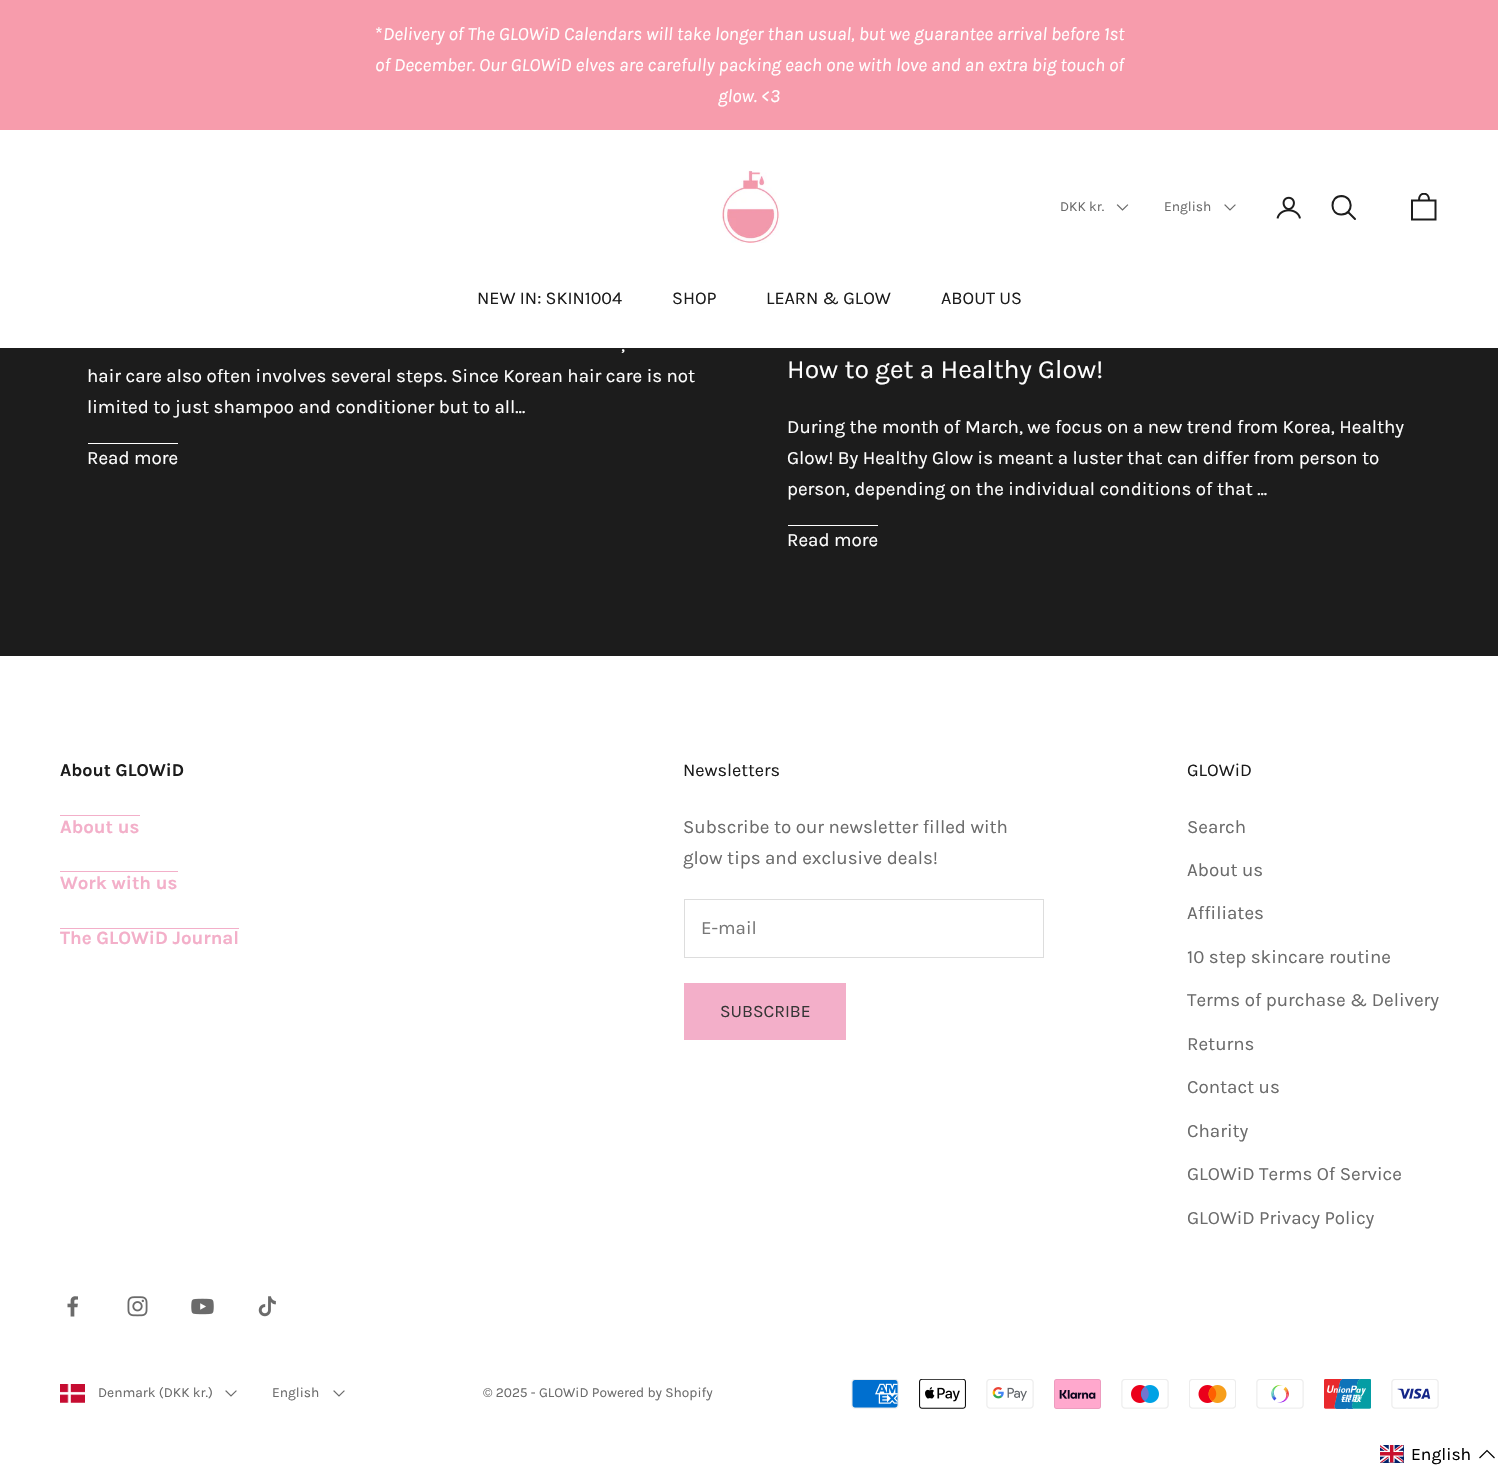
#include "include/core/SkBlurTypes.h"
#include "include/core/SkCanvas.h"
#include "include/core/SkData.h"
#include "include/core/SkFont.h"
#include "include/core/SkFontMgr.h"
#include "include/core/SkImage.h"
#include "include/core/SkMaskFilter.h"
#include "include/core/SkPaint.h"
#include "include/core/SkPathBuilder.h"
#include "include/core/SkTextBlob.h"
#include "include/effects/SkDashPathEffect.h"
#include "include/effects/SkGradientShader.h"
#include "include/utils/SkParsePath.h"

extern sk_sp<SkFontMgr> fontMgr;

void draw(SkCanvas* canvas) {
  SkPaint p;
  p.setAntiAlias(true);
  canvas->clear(SkColorSetRGB(28, 28, 28));
  p.setColor(SkColorSetRGB(247, 156, 172));
  canvas->drawRect(SkRect::MakeLTRB(0, 0, 1498, 130), p);
  p.setColor(SK_ColorWHITE);
  canvas->drawRect(SkRect::MakeLTRB(0, 130, 1498, 348), p);
  canvas->drawImageRect(SkImages::DeferredFromEncodedData(SkData::MakeFromFileName("images/1.png")), SkRect::MakeLTRB(721, 170, 780, 243), SkSamplingOptions());
  p.setStyle(SkPaint::kStroke_Style);
  p.setStrokeWidth(1.2f);
  p.setStrokeCap(SkPaint::kSquare_Cap);
  p.setColor(SkColorSetRGB(107, 107, 107));
  canvas->drawPath(SkPathBuilder().moveTo(1117.5f, 205).lineTo(1122.5f, 210).lineTo(1127.5f, 205).detach(), p);
  canvas->drawPath(SkPathBuilder().moveTo(1225, 205).lineTo(1230, 210).lineTo(1235, 205).detach(), p);
  canvas->drawImageRect(SkImages::DeferredFromEncodedData(SkData::MakeFromFileName("images/2.png")), SkRect::MakeLTRB(1276, 196, 1301, 219), SkSamplingOptions());
  p.setStrokeWidth(2);
  p.setStrokeCap(SkPaint::kButt_Cap);
  p.setColor(SkColorSetRGB(28, 28, 28));
  canvas->drawPath(SkPathBuilder().moveTo(1341.5f, 196).cubicTo(1329.5f, 196, 1329.5f, 215, 1341.5f, 214.5f).cubicTo(1354, 214, 1353.5f, 196.5f, 1341.5f, 196).close().detach(), p);
  p.setStrokeCap(SkPaint::kRound_Cap);
  canvas->drawPath(SkPathBuilder().moveTo(1348.5f, 212.5f).lineTo(1355, 219).detach(), p);
  canvas->save();
  canvas->clipRect(SkRect::MakeLTRB(1409, 193, 1439, 223));
  p.setStrokeCap(SkPaint::kButt_Cap);
  canvas->drawPath(SkPathBuilder().moveTo(1435.5f, 219.5f).lineTo(1435.5f, 200.5f).lineTo(1412, 200.5f).lineTo(1412, 219.5f).close().moveTo(1419, 200).cubicTo(1419, 191.5f, 1429, 191.5f, 1429, 200).detach(), p);
  canvas->restore();
  p.setStyle(SkPaint::kFill_Style);
  p.setColor(SK_ColorWHITE);
  canvas->drawRect(SkRect::MakeLTRB(88, 443, 178, 444), p);
  canvas->drawRect(SkRect::MakeLTRB(788, 525, 878, 526), p);
  canvas->drawRect(SkRect::MakeLTRB(0, 656, 1498, 1468), p);
  p.setColor(SkColorSetRGB(243, 175, 201));
  canvas->drawRect(SkRect::MakeLTRB(60, 815, 140, 816), p);
  canvas->drawRect(SkRect::MakeLTRB(60, 871, 178, 872), p);
  canvas->drawRect(SkRect::MakeLTRB(60, 928, 239, 929), p);
  p.setStyle(SkPaint::kStroke_Style);
  p.setStrokeWidth(1);
  p.setColor(SkColorSetRGB(221, 221, 221));
  canvas->drawRect(SkRect::MakeLTRB(684.5f, 899.5f, 1043.5f, 957.5f), p);
  p.setStyle(SkPaint::kFill_Style);
  p.setColor(SkColorSetRGB(243, 175, 201));
  canvas->drawRect(SkRect::MakeLTRB(684.5f, 983.5f, 845.5f, 1039.5f), p);
  p.setStyle(SkPaint::kStroke_Style);
  canvas->drawRect(SkRect::MakeLTRB(684.5f, 983.5f, 845.5f, 1039.5f), p);
  canvas->drawImageRect(SkImages::DeferredFromEncodedData(SkData::MakeFromFileName("images/3.png")), SkRect::MakeLTRB(67, 1296, 78, 1317), SkSamplingOptions());
  canvas->drawImageRect(SkImages::DeferredFromEncodedData(SkData::MakeFromFileName("images/4.png")), SkRect::MakeLTRB(127, 1296, 148, 1317), SkSamplingOptions());
  canvas->drawImageRect(SkImages::DeferredFromEncodedData(SkData::MakeFromFileName("images/5.png")), SkRect::MakeLTRB(191, 1298, 214, 1315), SkSamplingOptions());
  canvas->drawImageRect(SkImages::DeferredFromEncodedData(SkData::MakeFromFileName("images/6.png")), SkRect::MakeLTRB(258, 1296, 276, 1317), SkSamplingOptions());
  canvas->drawImageRect(SkImages::DeferredFromEncodedData(SkData::MakeFromFileName("images/7.png")), SkRect::MakeLTRB(60, 1384, 85, 1403), SkSamplingOptions());
  p.setStrokeWidth(1.2f);
  p.setStrokeCap(SkPaint::kSquare_Cap);
  p.setColor(SkColorSetRGB(107, 107, 107));
  canvas->drawPath(SkPathBuilder().moveTo(226, 1391).lineTo(231, 1396).lineTo(236, 1391).detach(), p);
  canvas->drawPath(SkPathBuilder().moveTo(334, 1391).lineTo(339, 1396).lineTo(344, 1391).detach(), p);
  canvas->drawImageRect(SkImages::DeferredFromEncodedData(SkData::MakeFromFileName("images/8.png")), SkRect::MakeLTRB(851, 1379, 899, 1409), SkSamplingOptions());
  canvas->drawImageRect(SkImages::DeferredFromEncodedData(SkData::MakeFromFileName("images/9.png")), SkRect::MakeLTRB(919, 1379, 966, 1409), SkSamplingOptions());
  canvas->drawImageRect(SkImages::DeferredFromEncodedData(SkData::MakeFromFileName("images/10.png")), SkRect::MakeLTRB(986, 1379, 1034, 1409), SkSamplingOptions());
  canvas->drawImageRect(SkImages::DeferredFromEncodedData(SkData::MakeFromFileName("images/11.png")), SkRect::MakeLTRB(1054, 1379, 1101, 1409), SkSamplingOptions());
  canvas->drawImageRect(SkImages::DeferredFromEncodedData(SkData::MakeFromFileName("images/12.png")), SkRect::MakeLTRB(1121, 1379, 1169, 1409), SkSamplingOptions());
  canvas->drawImageRect(SkImages::DeferredFromEncodedData(SkData::MakeFromFileName("images/13.png")), SkRect::MakeLTRB(1189, 1379, 1236, 1409), SkSamplingOptions());
  canvas->drawImageRect(SkImages::DeferredFromEncodedData(SkData::MakeFromFileName("images/14.png")), SkRect::MakeLTRB(1256, 1379, 1304, 1409), SkSamplingOptions());
  canvas->drawImageRect(SkImages::DeferredFromEncodedData(SkData::MakeFromFileName("images/15.png")), SkRect::MakeLTRB(1324, 1379, 1371, 1409), SkSamplingOptions());
  canvas->drawImageRect(SkImages::DeferredFromEncodedData(SkData::MakeFromFileName("images/16.png")), SkRect::MakeLTRB(1391, 1379, 1439, 1409), SkSamplingOptions());
  canvas->drawImageRect(SkImages::DeferredFromEncodedData(SkData::MakeFromFileName("images/17.png")), SkRect::MakeLTRB(1380, 1445, 1404, 1463), SkSamplingOptions());
  p.setStrokeCap(SkPaint::kButt_Cap);
  p.setColor(SK_ColorBLACK);
  canvas->drawPath(SkPathBuilder().moveTo(1494.5f, 1458).lineTo(1487, 1450.5f).lineTo(1479.5f, 1458).detach(), p);
  SkFont font1(fontMgr->matchFamilyStyle("Karla", SkFontStyle::Normal()), 18.75f);
  font1.setSubpixel(true);
  p.setStyle(SkPaint::kFill_Style);
  p.setColor(SK_ColorWHITE);
  canvas->drawString("*", 375, 40, font1, p);
  SkFont font2(fontMgr->matchFamilyStyle("Karla", SkFontStyle::Italic()), 18.75f);
  font2.setSubpixel(true);
  canvas->drawString("Delivery of The GLOWiD Calendars will take longer than usual, but we guarantee arrival before 1st", 383, 40, font2, p);
  canvas->drawString("of December. Our GLOWiD elves are carefully packing each one with love and an extra big touch of", 375, 71, font2, p);
  canvas->drawString("glow. <3", 718, 102, font2, p);
  SkFont font3(fontMgr->matchFamilyStyle("Karla", SkFontStyle::Normal()), 13.75f);
  font3.setSubpixel(true);
  p.setColor(SkColorSetRGB(107, 107, 107));
  canvas->drawString("DKK kr.", 1060, 211, font3, p);
  canvas->drawString("English", 1164, 211, font3, p);
  SkFont font4(fontMgr->matchFamilyStyle("Karla", SkFontStyle::Normal()), 18);
  font4.setSubpixel(true);
  p.setColor(SkColorSetRGB(28, 28, 28));
  canvas->drawString("NEW IN: SKIN1004", 477, 304, font4, p);
  canvas->drawString("SHOP", 672, 304, font4, p);
  canvas->drawString("LEARN & GLOW", 766, 304, font4, p);
  canvas->drawString("ABOUT US", 941, 304, font4, p);
  p.setColor(SK_ColorWHITE);
  canvas->drawString(",", 621, 351, font1, p);
  canvas->drawString("hair care also often involves several steps. Since Korean hair care is not", 87, 382, font1, p);
  canvas->drawString("limited to just shampoo and conditioner but to all...", 87, 413, font1, p);
  canvas->drawString("Read more", 87, 464, font1, p);
  SkFont font5(fontMgr->matchFamilyStyle("Karla", SkFontStyle::Normal()), 26.4f);
  font5.setSubpixel(true);
  canvas->drawString("How to get a Healthy Glow!", 787, 378, font5, p);
  canvas->drawString("During the month of March, we focus on a new trend from Korea, Healthy", 787, 433, font1, p);
  canvas->drawString("Glow! By Healthy Glow is meant a luster that can differ from person to", 787, 464, font1, p);
  canvas->drawString("person, depending on the individual conditions of that ...", 787, 495, font1, p);
  canvas->drawString("Read more", 787, 546, font1, p);
  SkFont font6(fontMgr->matchFamilyStyle("Karla", SkFontStyle::Bold()), 18);
  font6.setSubpixel(true);
  p.setColor(SkColorSetRGB(28, 28, 28));
  canvas->drawString("About GLOWiD", 60, 776, font6, p);
  SkFont font7(fontMgr->matchFamilyStyle("Karla", SkFontStyle::Bold()), 18.75f);
  font7.setSubpixel(true);
  p.setColor(SkColorSetRGB(243, 175, 201));
  canvas->drawString("About us", 60, 833, font7, p);
  canvas->drawString("Work with us", 60, 889, font7, p);
  canvas->drawString("The GLOWiD Journal", 60, 944, font7, p);
  p.setColor(SkColorSetRGB(28, 28, 28));
  canvas->drawString("Newsletters", 683, 776, font4, p);
  p.setColor(SkColorSetRGB(107, 107, 107));
  canvas->drawString("Subscribe to our newsletter filled with", 683, 833, font1, p);
  canvas->drawString("glow tips and exclusive deals!", 683, 864, font1, p);
  p.setColor(SkColorSetRGB(119, 119, 119));
  canvas->drawString("E-mail", 701, 934, font1, p);
  SkFont font8(fontMgr->matchFamilyStyle("Karla", SkFontStyle::Normal()), 17.5f);
  font8.setSubpixel(true);
  p.setColor(SkColorSetRGB(54, 54, 54));
  canvas->drawString("SUBSCRIBE", 720, 1017, font8, p);
  p.setColor(SkColorSetRGB(28, 28, 28));
  canvas->drawString("GLOWiD", 1187, 776, font4, p);
  p.setColor(SkColorSetRGB(107, 107, 107));
  canvas->drawString("Search", 1187, 833, font1, p);
  canvas->drawString("About us", 1187, 876, font1, p);
  canvas->drawString("Affiliates", 1187, 919, font1, p);
  canvas->drawString("10 step skincare routine", 1187, 963, font1, p);
  canvas->drawString("Terms of purchase & Delivery", 1187, 1006, font1, p);
  canvas->drawString("Returns", 1187, 1050, font1, p);
  canvas->drawString("Contact us", 1187, 1093, font1, p);
  canvas->drawString("Charity", 1187, 1137, font1, p);
  canvas->drawString("GLOWiD Terms Of Service", 1187, 1180, font1, p);
  canvas->drawString("GLOWiD Privacy Policy", 1187, 1224, font1, p);
  canvas->drawString("Denmark (DKK kr.)", 98, 1397, font3, p);
  canvas->drawString("English", 272, 1397, font3, p);
  canvas->drawString("© 2025 - GLOWiD Powered by Shopify", 483, 1397, font3, p);
  p.setColor(SK_ColorBLACK);
  canvas->drawString("English", 1411, 1460, font8, p);
}
